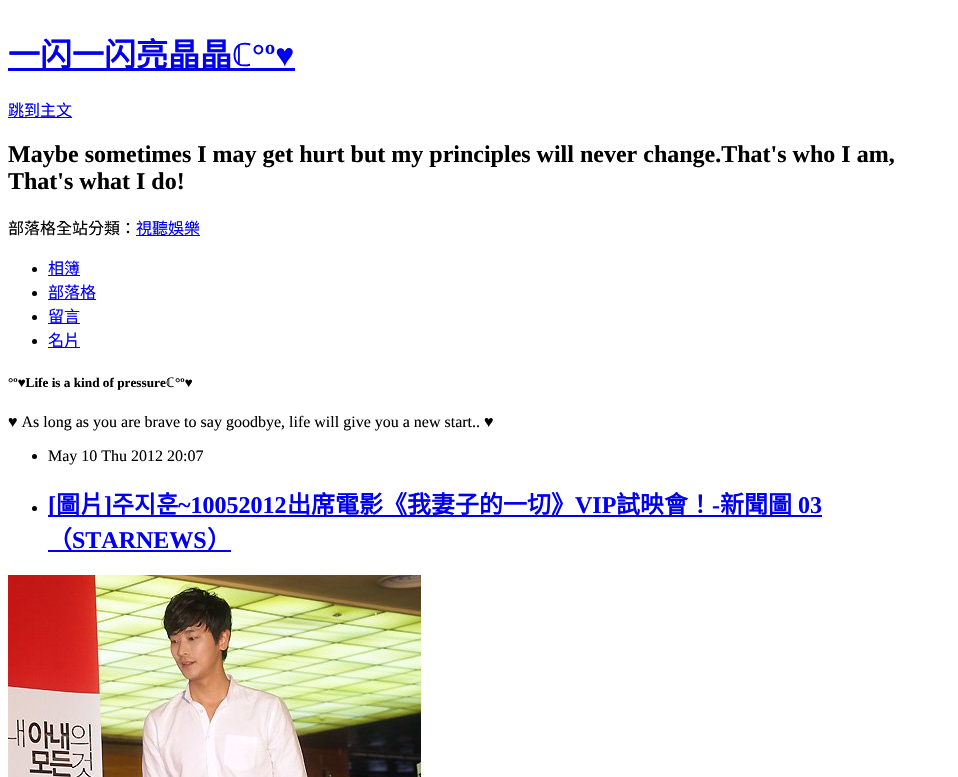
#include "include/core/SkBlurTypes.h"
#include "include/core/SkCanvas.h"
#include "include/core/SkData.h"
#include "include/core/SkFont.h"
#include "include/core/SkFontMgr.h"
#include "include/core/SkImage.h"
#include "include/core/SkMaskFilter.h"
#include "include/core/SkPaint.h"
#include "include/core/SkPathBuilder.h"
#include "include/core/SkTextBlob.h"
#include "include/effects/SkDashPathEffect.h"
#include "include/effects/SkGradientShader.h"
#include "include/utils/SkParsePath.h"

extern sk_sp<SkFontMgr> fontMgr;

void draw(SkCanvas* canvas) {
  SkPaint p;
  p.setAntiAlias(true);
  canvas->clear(SK_ColorWHITE);
  p.setColor(SkColorSetRGB(0, 0, 238));
  canvas->drawRect(SkRect::MakeLTRB(8, 68, 295, 71), p);
  canvas->drawRect(SkRect::MakeLTRB(8, 117, 72, 118), p);
  canvas->drawRect(SkRect::MakeLTRB(136, 235, 200, 236), p);
  p.setColor(SK_ColorBLACK);
  canvas->drawCircle(34.5f, 269.5f, 2.5f, p);
  p.setColor(SkColorSetRGB(0, 0, 238));
  canvas->drawRect(SkRect::MakeLTRB(48, 275, 80, 276), p);
  p.setColor(SK_ColorBLACK);
  canvas->drawCircle(34.5f, 293.5f, 2.5f, p);
  p.setColor(SkColorSetRGB(0, 0, 238));
  canvas->drawRect(SkRect::MakeLTRB(48, 299, 96, 300), p);
  p.setColor(SK_ColorBLACK);
  canvas->drawCircle(34.5f, 317.5f, 2.5f, p);
  p.setColor(SkColorSetRGB(0, 0, 238));
  canvas->drawRect(SkRect::MakeLTRB(48, 323, 80, 324), p);
  p.setColor(SK_ColorBLACK);
  canvas->drawCircle(34.5f, 341.5f, 2.5f, p);
  p.setColor(SkColorSetRGB(0, 0, 238));
  canvas->drawRect(SkRect::MakeLTRB(48, 347, 80, 348), p);
  p.setColor(SK_ColorBLACK);
  canvas->drawCircle(34.5f, 456.5f, 2.5f, p);
  canvas->drawCircle(34.5f, 508.5f, 2.5f, p);
  p.setColor(SkColorSetRGB(0, 0, 238));
  canvas->drawRect(SkRect::MakeLTRB(48, 515, 822, 517), p);
  canvas->drawRect(SkRect::MakeLTRB(48, 550, 231, 552), p);
  canvas->drawImageRect(SkImages::DeferredFromEncodedData(SkData::MakeFromFileName("images/1.png")), SkRect::MakeLTRB(8, 575, 421, 777), SkSamplingOptions());
  SkFont font1(fontMgr->matchFamilyStyle("Noto Sans CJK TC", SkFontStyle::Bold()), 32);
  font1.setSubpixel(true);
  canvas->drawString("一闪一闪亮晶晶", 8, 66, font1, p);
  SkFont font2(fontMgr->matchFamilyStyle("Noto Sans", SkFontStyle::Bold()), 32);
  font2.setSubpixel(true);
  canvas->drawString("ℂ", 232, 66, font2, p);
  SkFont font3(fontMgr->matchFamilyStyle("Liberation Serif", SkFontStyle::Bold()), 32);
  font3.setSubpixel(true);
  canvas->drawString("°º♥", 252, 66, font3, p);
  SkFont font4(fontMgr->matchFamilyStyle("Noto Sans CJK TC", SkFontStyle::Normal()), 16);
  font4.setSubpixel(true);
  canvas->drawString("跳到主文", 8, 116, font4, p);
  SkFont font5(fontMgr->matchFamilyStyle("Liberation Serif", SkFontStyle::Bold()), 24);
  font5.setSubpixel(true);
  p.setColor(SK_ColorBLACK);
  canvas->drawString("Maybe sometimes I may get hurt but my principles will never change.That's who I am,", 8, 162, font5, p);
  canvas->drawString("That's what I do!", 8, 189, font5, p);
  canvas->drawString("部落格全站分類：", 8, 234, font4, p);
  p.setColor(SkColorSetRGB(0, 0, 238));
  canvas->drawString("視聽娛樂", 136, 234, font4, p);
  canvas->drawString("相簿", 48, 274, font4, p);
  canvas->drawString("部落格", 48, 298, font4, p);
  canvas->drawString("留言", 48, 322, font4, p);
  canvas->drawString("名片", 48, 346, font4, p);
  SkFont font6(fontMgr->matchFamilyStyle("Liberation Serif", SkFontStyle::Bold()), 13.25f);
  font6.setSubpixel(true);
  p.setColor(SK_ColorBLACK);
  canvas->drawString("°º♥Life is a kind of pressure", 8, 387, font6, p);
  SkFont font7(fontMgr->matchFamilyStyle("Noto Sans", SkFontStyle::Bold()), 13.25f);
  font7.setSubpixel(true);
  canvas->drawString("ℂ", 166, 387, font7, p);
  canvas->drawString("°º♥", 175, 387, font6, p);
  SkFont font8(fontMgr->matchFamilyStyle("Liberation Serif", SkFontStyle::Normal()), 16);
  font8.setSubpixel(true);
  canvas->drawString("♥ As long as you are brave to say goodbye, life will give you a new start.. ♥", 8, 427, font8, p);
  canvas->drawString("May 10 Thu 2012 20:07", 48, 461, font8, p);
  p.setColor(SkColorSetRGB(0, 0, 238));
  canvas->drawString("[", 48, 513, font5, p);
  SkFont font9(fontMgr->matchFamilyStyle("Noto Sans CJK TC", SkFontStyle::Bold()), 24);
  font9.setSubpixel(true);
  canvas->drawString("圖片", 56, 513, font9, p);
  canvas->drawString("]", 104, 513, font5, p);
  canvas->drawString("주지훈", 112, 513, font9, p);
  canvas->drawString("~10052012", 178, 513, font5, p);
  canvas->drawString("出席電影《我妻子的一切》", 287, 513, font9, p);
  canvas->drawString("VIP", 575, 513, font5, p);
  canvas->drawString("試映會！", 616, 513, font9, p);
  canvas->drawString("-", 712, 513, font5, p);
  canvas->drawString("新聞圖", 720, 513, font9, p);
  canvas->drawString("03", 798, 513, font5, p);
  canvas->drawString("（", 48, 548, font9, p);
  canvas->drawString("STARNEWS", 72, 548, font5, p);
  canvas->drawString("）", 207, 548, font9, p);
}
